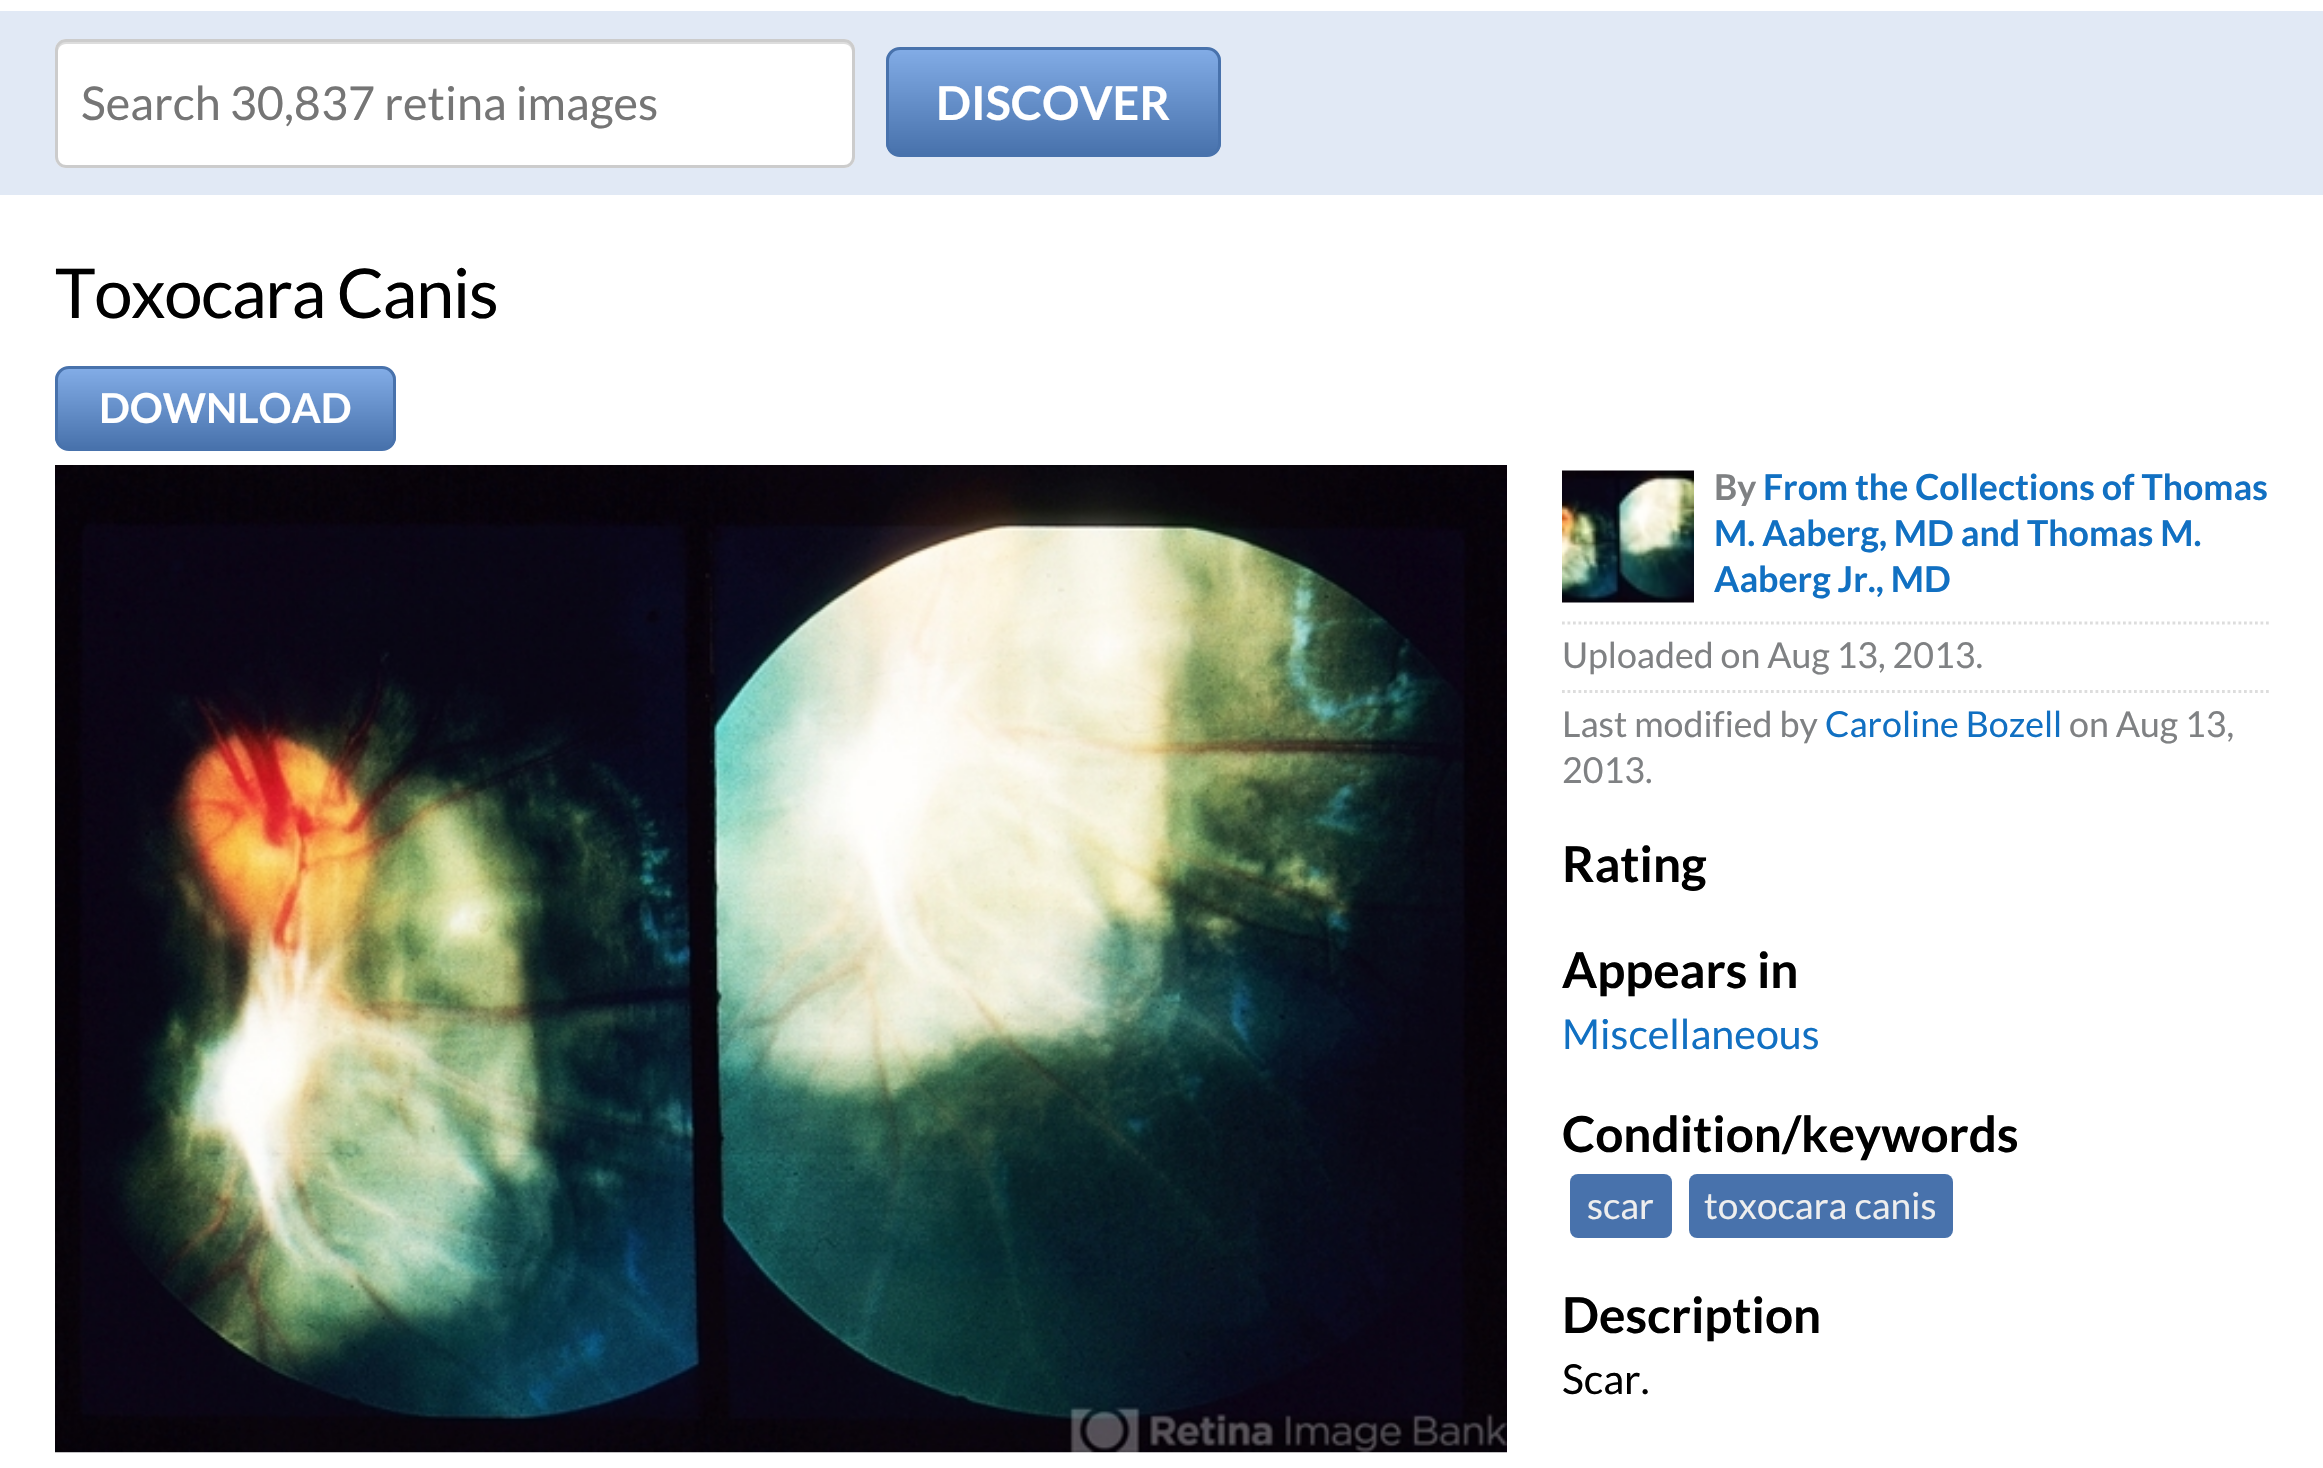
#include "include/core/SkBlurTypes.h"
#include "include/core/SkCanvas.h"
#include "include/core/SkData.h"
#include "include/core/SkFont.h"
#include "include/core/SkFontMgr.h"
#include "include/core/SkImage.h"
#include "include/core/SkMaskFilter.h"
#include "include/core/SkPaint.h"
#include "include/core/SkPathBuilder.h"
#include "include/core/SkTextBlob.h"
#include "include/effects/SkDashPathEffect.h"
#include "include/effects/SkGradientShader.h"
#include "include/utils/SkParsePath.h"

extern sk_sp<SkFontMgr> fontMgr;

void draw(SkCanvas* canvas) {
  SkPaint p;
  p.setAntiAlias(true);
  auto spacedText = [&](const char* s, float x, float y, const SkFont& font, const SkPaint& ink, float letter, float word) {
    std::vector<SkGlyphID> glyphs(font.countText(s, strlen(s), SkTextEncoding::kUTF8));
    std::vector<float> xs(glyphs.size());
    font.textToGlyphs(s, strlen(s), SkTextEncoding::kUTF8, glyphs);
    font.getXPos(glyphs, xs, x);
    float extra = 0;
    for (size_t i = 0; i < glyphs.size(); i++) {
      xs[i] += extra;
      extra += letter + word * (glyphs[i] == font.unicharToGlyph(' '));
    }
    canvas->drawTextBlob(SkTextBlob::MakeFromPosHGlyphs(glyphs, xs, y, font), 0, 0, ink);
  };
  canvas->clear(SK_ColorWHITE);
  p.setColor(SkColorSetRGB(225, 233, 245));
  canvas->drawRect(SkRect::MakeLTRB(0, 11, 2323, 195), p);
  p.setColor(SK_ColorWHITE);
  canvas->drawRoundRect(SkRect::MakeLTRB(55, 39, 855, 168), 11, 11, p);
  p.setColor(SkColorSetRGB(221, 221, 221));
  canvas->drawPath(SkPathBuilder().moveTo(66, 44).lineTo(844, 44).cubicTo(849, 44, 852, 48, 852, 52).lineTo(852, 161).cubicTo(853, 160, 853, 158, 853, 157).lineTo(853, 49).cubicTo(853, 45, 849, 41, 845, 41).lineTo(66, 41).cubicTo(62, 41, 58, 45, 58, 49).lineTo(58, 52).cubicTo(58, 48, 61, 44, 66, 44).close().detach(), p);
  p.setStyle(SkPaint::kStroke_Style);
  p.setStrokeWidth(3);
  p.setColor(SkColorSetRGB(204, 204, 204));
  canvas->drawRoundRect(SkRect::MakeLTRB(56.5f, 40.5f, 853.5f, 166.5f), 9.5f, 9.5f, p);
  canvas->save();
  canvas->clipPath(SkPathBuilder().moveTo(900, 47).lineTo(1207, 47).cubicTo(1214.5f, 47, 1221, 53.5f, 1221, 61).lineTo(1221, 143).cubicTo(1221, 150.5f, 1214.5f, 157, 1207, 157).lineTo(900, 157).cubicTo(892.5f, 157, 886, 150.5f, 886, 143).lineTo(886, 61).cubicTo(886, 53.5f, 892.5f, 47, 900, 47).close().detach(), true);
  p.setStyle(SkPaint::kFill_Style);
  {
    const SkColor colors[] = {SkColorSetRGB(130, 172, 230), SkColorSetRGB(72, 114, 172)};
    const float stops[] = {0, 1};
    const SkPoint ends[] = {{1053, 49}, {1053, 154}};
    p.setShader(SkGradientShader::MakeLinear(ends, colors, stops, 2, SkTileMode::kClamp));
    p.setAlpha(255);
  }
  canvas->drawRect(SkRect::MakeLTRB(886, 50, 1221, 154), p);
  canvas->restore();
  p.setStyle(SkPaint::kStroke_Style);
  p.setShader(nullptr);
  p.setColor(SkColorSetRGB(72, 114, 172));
  canvas->drawRoundRect(SkRect::MakeLTRB(887.5f, 48.5f, 1219.5f, 155.5f), 12.5f, 12.5f, p);
  canvas->save();
  canvas->clipPath(SkPathBuilder().moveTo(69, 366).lineTo(382, 366).cubicTo(389.5f, 366, 396, 372.5f, 396, 380).lineTo(396, 437).cubicTo(396, 444.5f, 389.5f, 451, 382, 451).lineTo(69, 451).cubicTo(61.5f, 451, 55, 444.5f, 55, 437).lineTo(55, 380).cubicTo(55, 372.5f, 61.5f, 366, 69, 366).close().detach(), true);
  p.setStyle(SkPaint::kFill_Style);
  {
    const SkColor colors[] = {SkColorSetRGB(130, 172, 230), SkColorSetRGB(72, 114, 172)};
    const float stops[] = {0, 1};
    const SkPoint ends[] = {{226, 369}, {226, 448}};
    p.setShader(SkGradientShader::MakeLinear(ends, colors, stops, 2, SkTileMode::kClamp));
    p.setAlpha(255);
  }
  canvas->drawRect(SkRect::MakeLTRB(55, 369, 396, 448), p);
  canvas->restore();
  p.setStyle(SkPaint::kStroke_Style);
  p.setShader(nullptr);
  p.setColor(SkColorSetRGB(72, 114, 172));
  canvas->drawRoundRect(SkRect::MakeLTRB(56.5f, 367.5f, 394.5f, 449.5f), 12.5f, 12.5f, p);
  canvas->drawImageRect(SkImages::DeferredFromEncodedData(SkData::MakeFromFileName("images/1.png")), SkRect::MakeLTRB(55, 465, 1507, 1453), SkSamplingOptions());
  p.setStrokeWidth(2.8f);
  p.setColor(SkColorSetRGB(221, 221, 221));
  p.setPathEffect(SkDashPathEffect::Make({{2.75f, 2.75f}}, 0));
  canvas->drawPath(SkPathBuilder().moveTo(1562, 623).lineTo(2269, 623).detach(), p);
  p.setPathEffect(nullptr);
  canvas->drawImageRect(SkImages::DeferredFromEncodedData(SkData::MakeFromFileName("images/2.png")), SkRect::MakeLTRB(1562, 470, 1694, 603), SkSamplingOptions());
  p.setPathEffect(SkDashPathEffect::Make({{2.75f, 2.75f}}, 0));
  canvas->drawPath(SkPathBuilder().moveTo(1562, 691.5f).lineTo(2269, 691.5f).detach(), p);
  p.setPathEffect(nullptr);
  p.setStyle(SkPaint::kFill_Style);
  p.setColor(SkColorSetRGB(72, 114, 172));
  canvas->drawRoundRect(SkRect::MakeLTRB(1570, 1174, 1672, 1238), 8, 8, p);
  canvas->drawRoundRect(SkRect::MakeLTRB(1689, 1174, 1953, 1238), 8, 8, p);
  SkFont font1(fontMgr->matchFamilyStyle("Lato", SkFontStyle::Normal()), 46.75f);
  font1.setSubpixel(true);
  p.setColor(SkColorSetRGB(117, 117, 117));
  canvas->drawString("Search 30,837 retina images", 81, 120, font1, p);
  SkFont font2(fontMgr->matchFamilyStyle("Lato", SkFontStyle::Bold()), 46.75f);
  font2.setSubpixel(true);
  p.setColor(SK_ColorWHITE);
  canvas->drawString("DISCOVER", 936, 120, font2, p);
  SkFont font3(fontMgr->matchFamilyStyle("Lato", SkFontStyle::Normal()), 68.75f);
  font3.setSubpixel(true);
  p.setColor(SK_ColorBLACK);
  spacedText("Toxocara Canis", 55, 318, font3, p, -1.4f, 0);
  SkFont font4(fontMgr->matchFamilyStyle("Lato", SkFontStyle::Bold()), 41.25f);
  font4.setSubpixel(true);
  p.setColor(SK_ColorWHITE);
  canvas->drawString("DOWNLOAD", 99, 423, font4, p);
  SkFont font5(fontMgr->matchFamilyStyle("Lato", SkFontStyle::Bold()), 35.75f);
  font5.setSubpixel(true);
  p.setColor(SkColorSetRGB(127, 129, 131));
  canvas->drawString("By", 1714, 500, font5, p);
  p.setColor(SkColorSetRGB(17, 112, 194));
  canvas->drawString("From the Collections of Thomas", 1763, 500, font5, p);
  canvas->drawString("M. Aaberg, MD and Thomas M.", 1714, 546, font5, p);
  canvas->drawString("Aaberg Jr., MD", 1714, 592, font5, p);
  SkFont font6(fontMgr->matchFamilyStyle("Lato", SkFontStyle::Normal()), 35.75f);
  font6.setSubpixel(true);
  p.setColor(SkColorSetRGB(127, 129, 131));
  canvas->drawString("Uploaded on Aug 13, 2013.", 1562, 668, font6, p);
  canvas->drawString("Last modified by", 1562, 737, font6, p);
  p.setColor(SkColorSetRGB(17, 112, 194));
  canvas->drawString("Caroline Bozell", 1825, 737, font6, p);
  p.setColor(SkColorSetRGB(127, 129, 131));
  canvas->drawString("on Aug 13,", 2069, 737, font6, p);
  canvas->drawString("2013.", 1562, 783, font6, p);
  SkFont font7(fontMgr->matchFamilyStyle("Lato", SkFontStyle::Bold()), 49.5f);
  font7.setSubpixel(true);
  p.setColor(SK_ColorBLACK);
  canvas->drawString("Rating", 1562, 882, font7, p);
  canvas->drawString("Appears in", 1562, 988, font7, p);
  SkFont font8(fontMgr->matchFamilyStyle("Lato", SkFontStyle::Normal()), 41.25f);
  font8.setSubpixel(true);
  p.setColor(SkColorSetRGB(17, 112, 194));
  canvas->drawString("Miscellaneous", 1562, 1049, font8, p);
  p.setColor(SK_ColorBLACK);
  canvas->drawString("Condition/keywords", 1562, 1152, font7, p);
  SkFont font9(fontMgr->matchFamilyStyle("Lato", SkFontStyle::Normal()), 37);
  font9.setSubpixel(true);
  p.setColor(SkColorSetRGB(238, 238, 238));
  canvas->drawString("scar", 1587, 1219, font9, p);
  canvas->drawString("toxocara canis", 1704, 1219, font9, p);
  p.setColor(SK_ColorBLACK);
  canvas->drawString("Description", 1562, 1333, font7, p);
  canvas->drawString("Scar.", 1562, 1394, font8, p);
}
